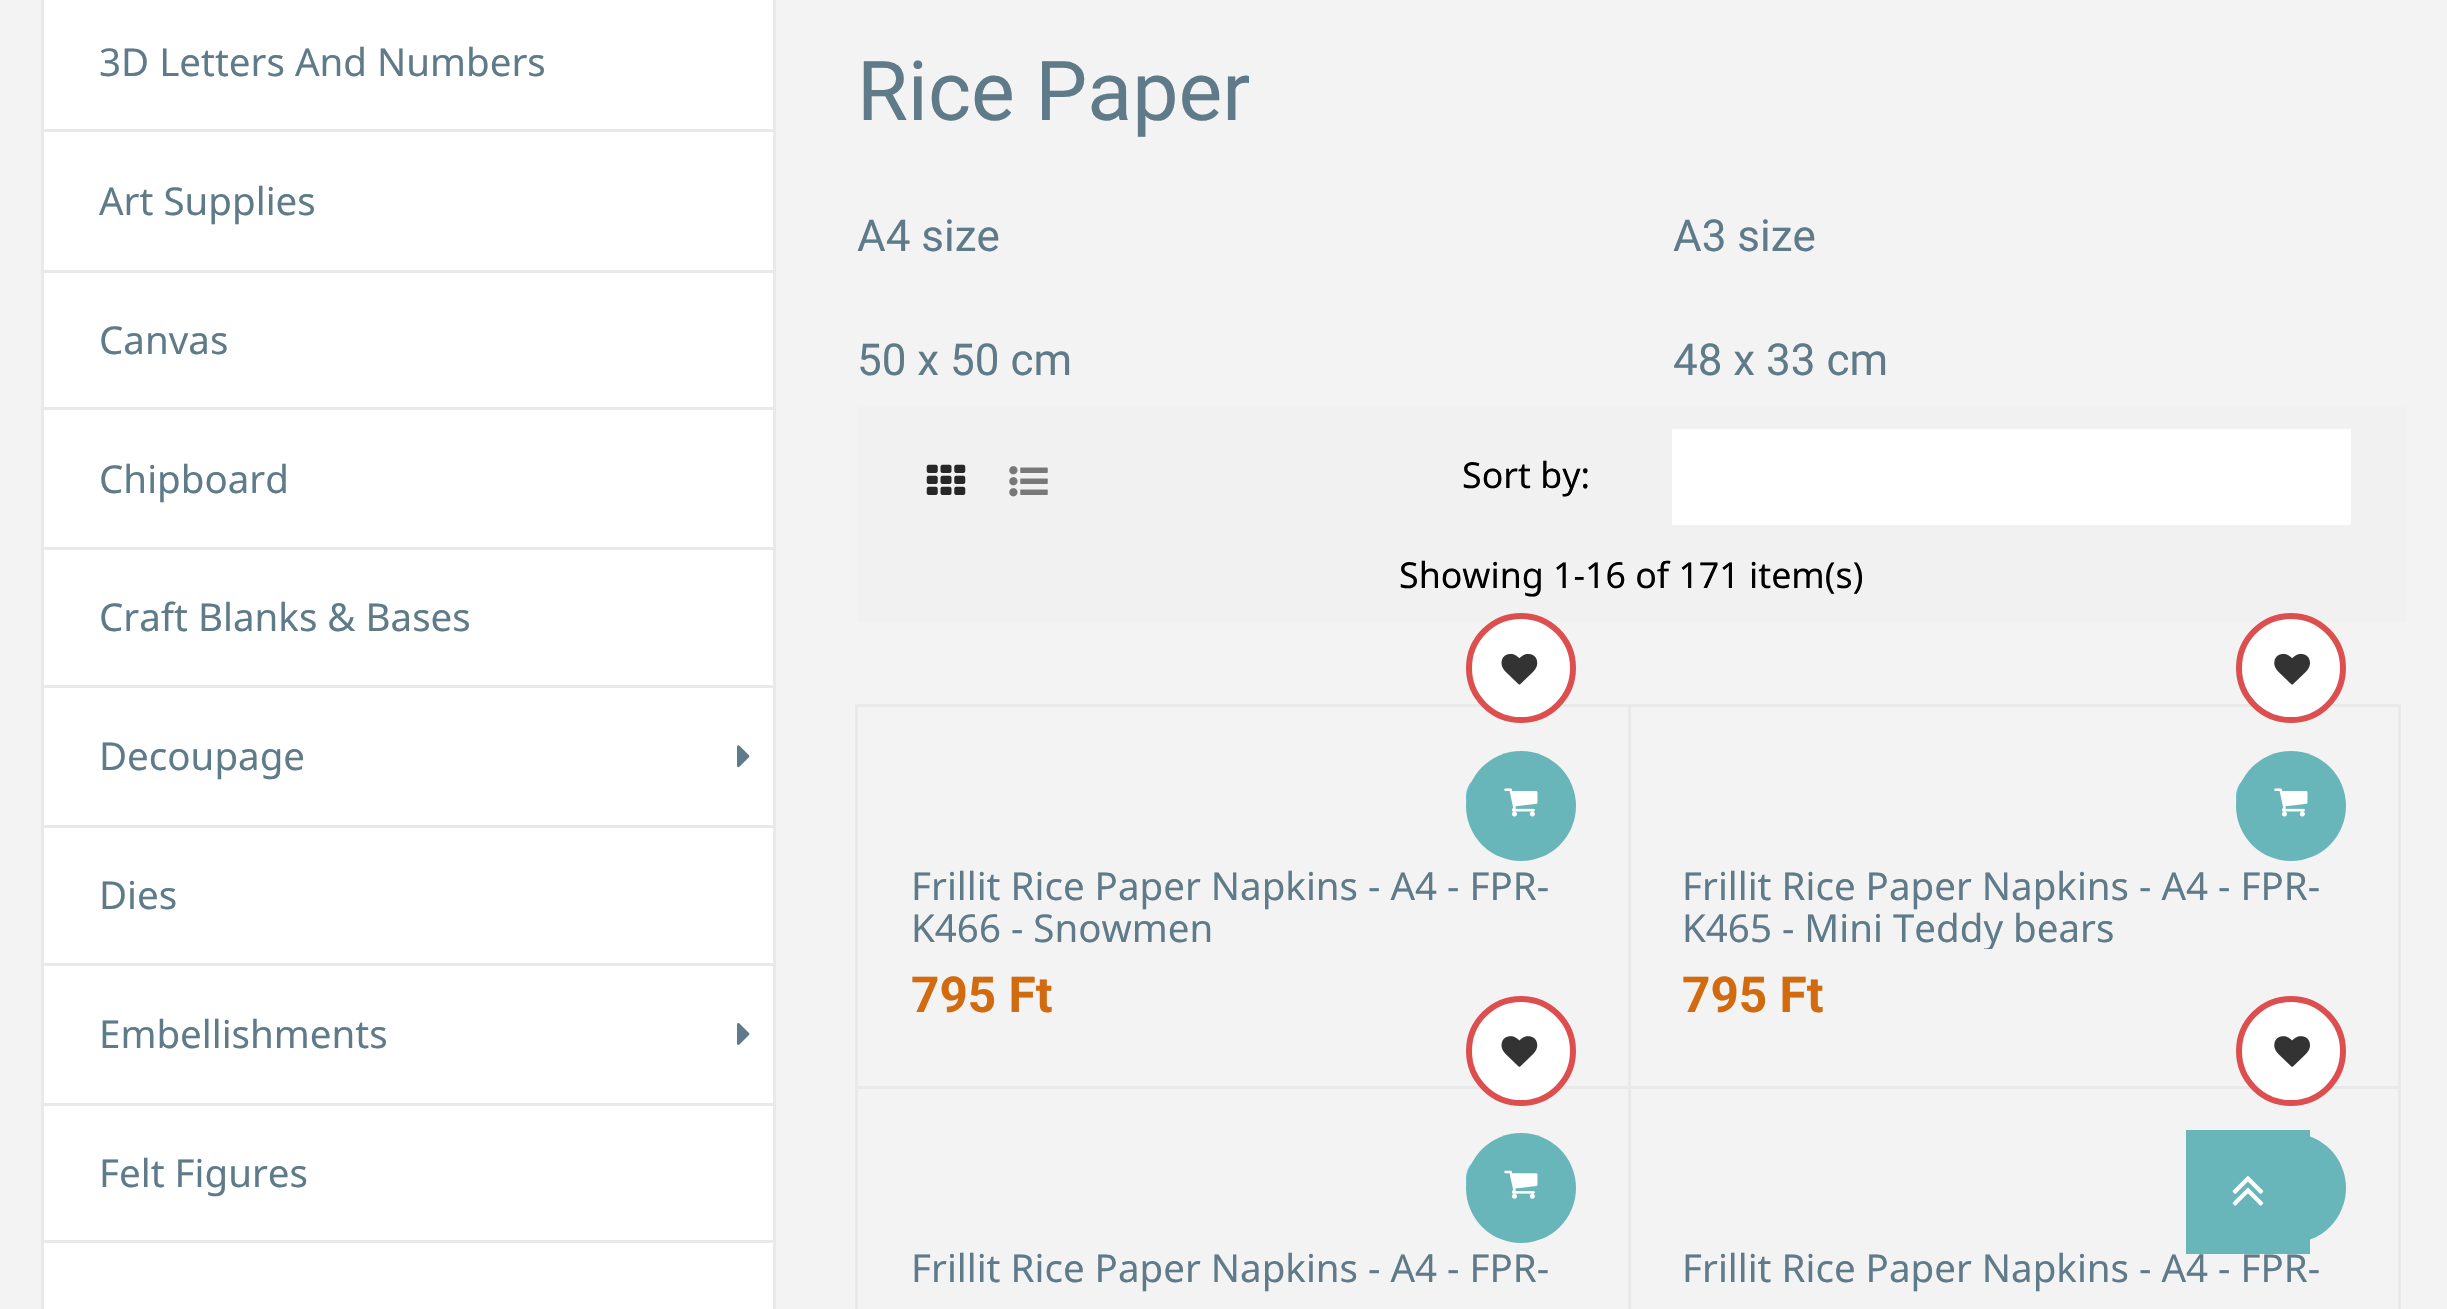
#include "include/core/SkBlurTypes.h"
#include "include/core/SkCanvas.h"
#include "include/core/SkData.h"
#include "include/core/SkFont.h"
#include "include/core/SkFontMgr.h"
#include "include/core/SkImage.h"
#include "include/core/SkMaskFilter.h"
#include "include/core/SkPaint.h"
#include "include/core/SkPathBuilder.h"
#include "include/core/SkTextBlob.h"
#include "include/effects/SkDashPathEffect.h"
#include "include/effects/SkGradientShader.h"
#include "include/utils/SkParsePath.h"

extern sk_sp<SkFontMgr> fontMgr;

void draw(SkCanvas* canvas) {
  SkPaint p;
  p.setAntiAlias(true);
  canvas->clear(SkColorSetRGB(244, 243, 243));
  p.setColor(SK_ColorWHITE);
  canvas->drawRect(SkRect::MakeLTRB(42.5f, -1.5f, 774.5f, 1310.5f), p);
  p.setStyle(SkPaint::kStroke_Style);
  p.setStrokeWidth(3);
  p.setColor(SkColorSetRGB(233, 233, 233));
  canvas->drawRect(SkRect::MakeLTRB(42.5f, -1.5f, 774.5f, 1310.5f), p);
  p.setStyle(SkPaint::kFill_Style);
  canvas->drawRect(SkRect::MakeLTRB(44, 129, 773, 132), p);
  canvas->drawRect(SkRect::MakeLTRB(44, 270, 773, 273), p);
  canvas->drawRect(SkRect::MakeLTRB(44, 407, 773, 410), p);
  canvas->drawRect(SkRect::MakeLTRB(44, 547, 773, 550), p);
  canvas->drawRect(SkRect::MakeLTRB(44, 685, 773, 688), p);
  canvas->drawRect(SkRect::MakeLTRB(44, 825, 773, 828), p);
  canvas->drawImageRect(SkImages::DeferredFromEncodedData(SkData::MakeFromFileName("images/1.png")), SkRect::MakeLTRB(737, 745, 750, 768), SkSamplingOptions());
  canvas->drawRect(SkRect::MakeLTRB(44, 963, 773, 966), p);
  canvas->drawRect(SkRect::MakeLTRB(44, 1103, 773, 1106), p);
  canvas->drawImageRect(SkImages::DeferredFromEncodedData(SkData::MakeFromFileName("images/2.png")), SkRect::MakeLTRB(737, 1023, 750, 1045), SkSamplingOptions());
  canvas->drawRect(SkRect::MakeLTRB(44, 1240, 773, 1243), p);
  p.setColor(SkColorSetRGB(241, 241, 241));
  canvas->drawRect(SkRect::MakeLTRB(858, 407, 2406, 622), p);
  canvas->drawImageRect(SkImages::DeferredFromEncodedData(SkData::MakeFromFileName("images/3.png")), SkRect::MakeLTRB(926, 464, 966, 495), SkSamplingOptions());
  canvas->drawImageRect(SkImages::DeferredFromEncodedData(SkData::MakeFromFileName("images/4.png")), SkRect::MakeLTRB(1009, 466, 1048, 497), SkSamplingOptions());
  p.setColor(SK_ColorWHITE);
  canvas->drawRect(SkRect::MakeLTRB(1672, 429, 2351, 525), p);
  p.setStyle(SkPaint::kStroke_Style);
  p.setColor(SkColorSetRGB(233, 233, 233));
  canvas->drawRect(SkRect::MakeLTRB(856.5f, 705.5f, 1629.5f, 1087.5f), p);
  p.setStyle(SkPaint::kFill_Style);
  p.setColor(SK_ColorWHITE);
  canvas->drawCircle(1521, 668, 52, p);
  p.setStyle(SkPaint::kStroke_Style);
  p.setStrokeWidth(6);
  p.setColor(SkColorSetRGB(221, 79, 79));
  canvas->drawCircle(1521, 668, 52, p);
  canvas->drawImageRect(SkImages::DeferredFromEncodedData(SkData::MakeFromFileName("images/5.png")), SkRect::MakeLTRB(1501, 653, 1538, 685), SkSamplingOptions());
  p.setStyle(SkPaint::kFill_Style);
  p.setColor(SkColorSetRGB(91, 192, 222));
  canvas->drawRoundRect(SkRect::MakeLTRB(1466, 773, 1562, 820), 23.5f, 23.5f, p);
  p.setColor(SkColorSetRGB(105, 182, 186));
  canvas->drawCircle(1521, 806, 55, p);
  canvas->drawImageRect(SkImages::DeferredFromEncodedData(SkData::MakeFromFileName("images/6.png")), SkRect::MakeLTRB(1504, 788, 1538, 817), SkSamplingOptions());
  p.setStyle(SkPaint::kStroke_Style);
  p.setStrokeWidth(3);
  p.setColor(SkColorSetRGB(233, 233, 233));
  canvas->drawRect(SkRect::MakeLTRB(1629.5f, 705.5f, 2399.5f, 1087.5f), p);
  p.setStyle(SkPaint::kFill_Style);
  p.setColor(SK_ColorWHITE);
  canvas->drawCircle(2291, 668, 52, p);
  p.setStyle(SkPaint::kStroke_Style);
  p.setStrokeWidth(6);
  p.setColor(SkColorSetRGB(221, 79, 79));
  canvas->drawCircle(2291, 668, 52, p);
  canvas->drawImageRect(SkImages::DeferredFromEncodedData(SkData::MakeFromFileName("images/7.png")), SkRect::MakeLTRB(2274, 653, 2310, 685), SkSamplingOptions());
  p.setStyle(SkPaint::kFill_Style);
  p.setColor(SkColorSetRGB(91, 192, 222));
  canvas->drawRoundRect(SkRect::MakeLTRB(2236, 773, 2332, 820), 23.5f, 23.5f, p);
  p.setColor(SkColorSetRGB(105, 182, 186));
  canvas->drawCircle(2291, 806, 55, p);
  canvas->drawImageRect(SkImages::DeferredFromEncodedData(SkData::MakeFromFileName("images/6.png")), SkRect::MakeLTRB(2274, 788, 2308, 817), SkSamplingOptions());
  p.setStyle(SkPaint::kStroke_Style);
  p.setStrokeWidth(3);
  p.setColor(SkColorSetRGB(233, 233, 233));
  canvas->drawRect(SkRect::MakeLTRB(856.5f, 1087.5f, 1629.5f, 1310.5f), p);
  p.setStyle(SkPaint::kFill_Style);
  p.setColor(SK_ColorWHITE);
  canvas->drawCircle(1521, 1051, 52, p);
  p.setStyle(SkPaint::kStroke_Style);
  p.setStrokeWidth(6);
  p.setColor(SkColorSetRGB(221, 79, 79));
  canvas->drawCircle(1521, 1051, 52, p);
  canvas->drawImageRect(SkImages::DeferredFromEncodedData(SkData::MakeFromFileName("images/8.png")), SkRect::MakeLTRB(1501, 1036, 1538, 1067), SkSamplingOptions());
  p.setStyle(SkPaint::kFill_Style);
  p.setColor(SkColorSetRGB(91, 192, 222));
  canvas->drawRoundRect(SkRect::MakeLTRB(1466, 1155, 1562, 1202), 23.5f, 23.5f, p);
  p.setColor(SkColorSetRGB(105, 182, 186));
  canvas->drawCircle(1521, 1188, 55, p);
  canvas->drawImageRect(SkImages::DeferredFromEncodedData(SkData::MakeFromFileName("images/9.png")), SkRect::MakeLTRB(1504, 1170, 1538, 1199), SkSamplingOptions());
  p.setStyle(SkPaint::kStroke_Style);
  p.setStrokeWidth(3);
  p.setColor(SkColorSetRGB(233, 233, 233));
  canvas->drawRect(SkRect::MakeLTRB(1629.5f, 1087.5f, 2399.5f, 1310.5f), p);
  p.setStyle(SkPaint::kFill_Style);
  p.setColor(SK_ColorWHITE);
  canvas->drawCircle(2291, 1051, 52, p);
  p.setStyle(SkPaint::kStroke_Style);
  p.setStrokeWidth(6);
  p.setColor(SkColorSetRGB(221, 79, 79));
  canvas->drawCircle(2291, 1051, 52, p);
  canvas->drawImageRect(SkImages::DeferredFromEncodedData(SkData::MakeFromFileName("images/10.png")), SkRect::MakeLTRB(2274, 1036, 2310, 1067), SkSamplingOptions());
  p.setStyle(SkPaint::kFill_Style);
  p.setColor(SkColorSetRGB(105, 182, 186));
  canvas->drawCircle(2291, 1188, 55, p);
  SkFont font1(fontMgr->matchFamilyStyle("Noto Sans", SkFontStyle::Normal()), 38.5f);
  font1.setSubpixel(true);
  p.setColor(SkColorSetRGB(95, 123, 137));
  canvas->drawString("3D Letters And Numbers", 99, 76, font1, p);
  canvas->drawString("Art Supplies", 99, 215, font1, p);
  canvas->drawString("Canvas", 99, 354, font1, p);
  canvas->drawString("Chipboard", 99, 493, font1, p);
  canvas->drawString("Craft Blanks & Bases", 99, 631, font1, p);
  canvas->drawString("Decoupage", 99, 770, font1, p);
  canvas->drawString("Dies", 99, 909, font1, p);
  canvas->drawString("Embellishments", 99, 1048, font1, p);
  canvas->drawString("Felt Figures", 99, 1187, font1, p);
  SkFont font2(fontMgr->matchFamilyStyle("Roboto", SkFontStyle::Normal()), 82.5f);
  font2.setSubpixel(true);
  canvas->drawString("Rice Paper", 857, 120, font2, p);
  SkFont font3(fontMgr->matchFamilyStyle("Roboto", SkFontStyle::Normal()), 44);
  font3.setSubpixel(true);
  canvas->drawString("A4 size", 857, 251, font3, p);
  canvas->drawString("A3 size", 1673, 251, font3, p);
  canvas->drawString("50 x 50 cm", 857, 375, font3, p);
  canvas->drawString("48 x 33 cm", 1673, 375, font3, p);
  SkFont font4(fontMgr->matchFamilyStyle("Noto Sans", SkFontStyle::Normal()), 35.75f);
  font4.setSubpixel(true);
  p.setColor(SK_ColorBLACK);
  canvas->drawString("Sort by:", 1462, 488, font4, p);
  canvas->drawString("Showing 1-16 of 171 item(s)", 1399, 588, font4, p);
  p.setColor(SkColorSetRGB(95, 123, 137));
  canvas->drawString("Frillit Rice Paper Napkins - A4 - FPR-", 911, 900, font1, p);
  canvas->drawString("K466 - Snowmen", 911, 942, font1, p);
  SkFont font5(fontMgr->matchFamilyStyle("Roboto", SkFontStyle::Bold()), 49.5f);
  font5.setSubpixel(true);
  p.setColor(SkColorSetRGB(210, 107, 15));
  canvas->drawString("795 Ft", 911, 1012, font5, p);
  p.setColor(SkColorSetRGB(95, 123, 137));
  canvas->drawString("Frillit Rice Paper Napkins - A4 - FPR-", 1682, 900, font1, p);
  canvas->save();
  canvas->clipRect(SkRect::MakeLTRB(1683, 864, 2346, 949));
  canvas->drawString("K465 - Mini Teddy bears", 1682, 942, font1, p);
  canvas->restore();
  p.setColor(SkColorSetRGB(210, 107, 15));
  canvas->drawString("795 Ft", 1682, 1012, font5, p);
  p.setColor(SkColorSetRGB(95, 123, 137));
  canvas->drawString("Frillit Rice Paper Napkins - A4 - FPR-", 911, 1282, font1, p);
  canvas->drawString("Frillit Rice Paper Napkins - A4 - FPR-", 1682, 1282, font1, p);
  p.setColor(SkColorSetRGB(105, 182, 186));
  canvas->drawRect(SkRect::MakeLTRB(2186, 1130, 2310, 1254), p);
  canvas->drawImageRect(SkImages::DeferredFromEncodedData(SkData::MakeFromFileName("images/11.png")), SkRect::MakeLTRB(2232, 1176, 2264, 1206), SkSamplingOptions());
}
